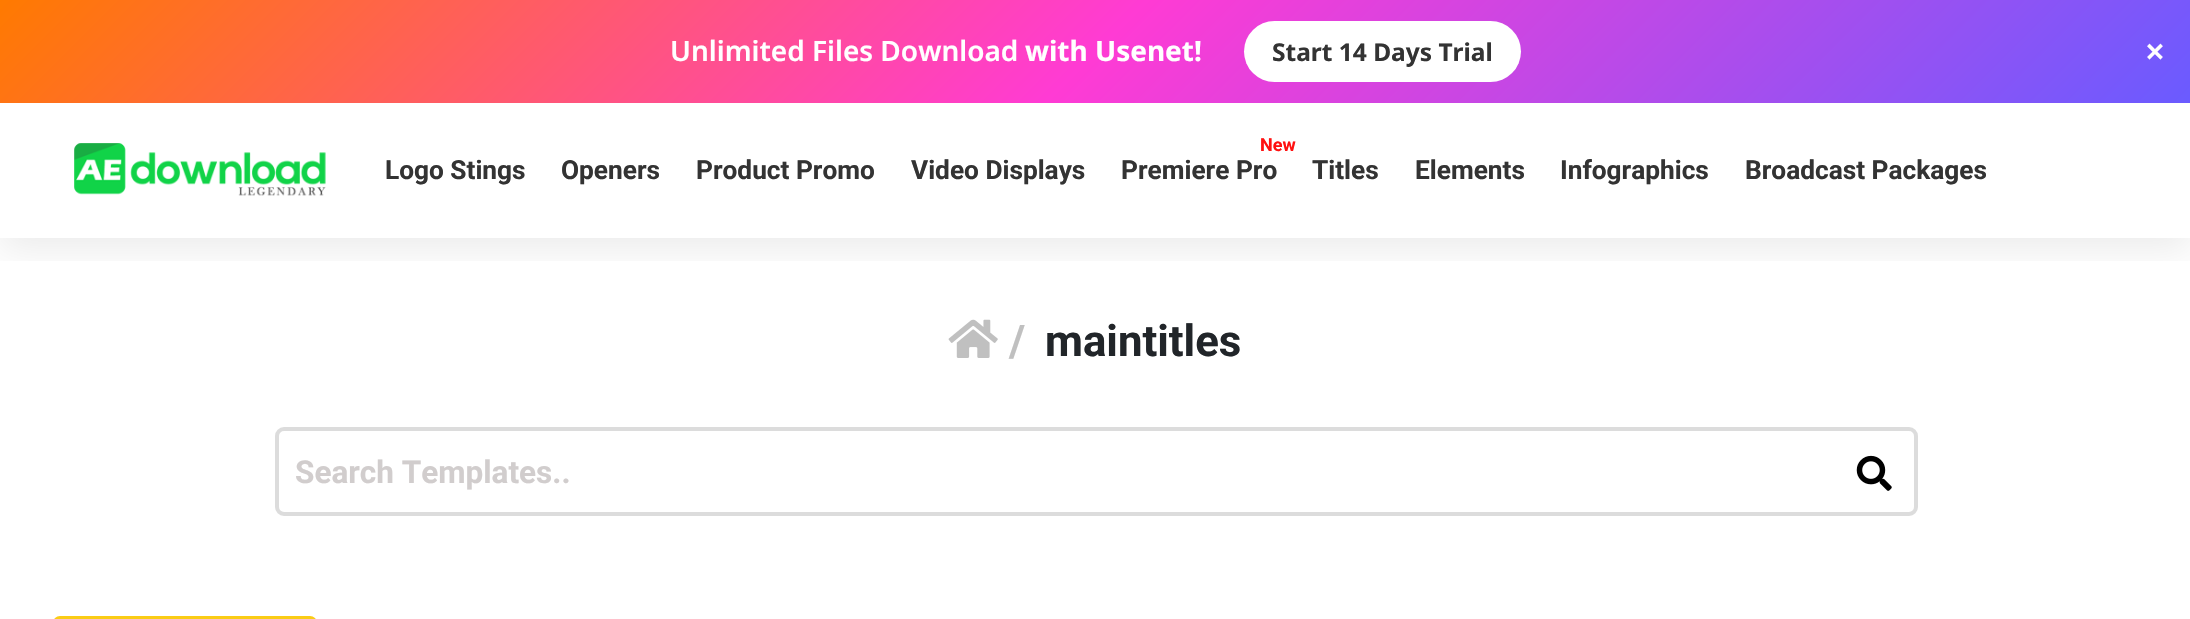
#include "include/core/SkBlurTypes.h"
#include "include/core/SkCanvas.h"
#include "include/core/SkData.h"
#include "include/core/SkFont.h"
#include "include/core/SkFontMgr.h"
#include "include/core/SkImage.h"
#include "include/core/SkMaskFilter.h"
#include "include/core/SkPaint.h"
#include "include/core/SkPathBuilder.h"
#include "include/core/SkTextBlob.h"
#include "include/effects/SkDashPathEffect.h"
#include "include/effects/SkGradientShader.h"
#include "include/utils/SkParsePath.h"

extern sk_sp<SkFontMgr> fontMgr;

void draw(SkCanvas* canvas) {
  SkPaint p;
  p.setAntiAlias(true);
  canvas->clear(SK_ColorWHITE);
  canvas->save();
  canvas->clipRect(SkRect::MakeLTRB(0, 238, 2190, 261));
  p.setColor(SkColorSetARGB(20, 0, 0, 0));
  p.setMaskFilter(SkMaskFilter::MakeBlur(kNormal_SkBlurStyle, 17.5f));
  canvas->drawRect(SkRect::MakeLTRB(0, 114, 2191, 249), p);
  p.setMaskFilter(nullptr);
  canvas->restore();
  {
    const SkColor colors[] = {SkColorSetRGB(255, 122, 0), SkColorSetRGB(255, 59, 212), SkColorSetRGB(106, 91, 255)};
    const float stops[] = {0, 0.5f, 1};
    const SkPoint ends[] = {{522, -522}, {1669, 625}};
    p.setShader(SkGradientShader::MakeLinear(ends, colors, stops, 3, SkTileMode::kClamp));
    p.setAlpha(255);
  }
  canvas->drawRect(SkRect::MakeLTRB(0, 0, 2190, 103), p);
  p.setShader(nullptr);
  p.setColor(SK_ColorWHITE);
  canvas->drawRoundRect(SkRect::MakeLTRB(1244, 21, 1521, 82), 30.5f, 30.5f, p);
  canvas->drawImageRect(SkImages::DeferredFromEncodedData(SkData::MakeFromFileName("images/1.png")), SkRect::MakeLTRB(74, 143, 326, 196), SkSamplingOptions());
  canvas->drawImageRect(SkImages::DeferredFromEncodedData(SkData::MakeFromFileName("images/2.png")), SkRect::MakeLTRB(948, 319, 998, 358), SkSamplingOptions());
  p.setStyle(SkPaint::kStroke_Style);
  p.setStrokeWidth(4);
  p.setColor(SkColorSetRGB(220, 220, 220));
  canvas->drawRoundRect(SkRect::MakeLTRB(277, 429, 1916, 514), 7, 7, p);
  canvas->drawImageRect(SkImages::DeferredFromEncodedData(SkData::MakeFromFileName("images/3.png")), SkRect::MakeLTRB(1856, 455, 1892, 491), SkSamplingOptions());
  p.setStyle(SkPaint::kFill_Style);
  p.setColor(SkColorSetRGB(250, 204, 21));
  canvas->drawRoundRect(SkRect::MakeLTRB(53, 616, 317, 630), 11, 11, p);
  SkFont font1(fontMgr->matchFamilyStyle("Noto Sans", SkFontStyle(600, SkFontStyle::kNormal_Width, SkFontStyle::kUpright_Slant)), 28);
  font1.setSubpixel(true);
  p.setColor(SK_ColorWHITE);
  canvas->drawString("Unlimited Files Download", 670, 61, font1, p);
  SkFont font2(fontMgr->matchFamilyStyle("Noto Sans", SkFontStyle::Bold()), 28);
  font2.setSubpixel(true);
  canvas->drawString("with Usenet!", 1025, 61, font2, p);
  SkFont font3(fontMgr->matchFamilyStyle("Noto Sans", SkFontStyle::Bold()), 24.5f);
  font3.setSubpixel(true);
  p.setColor(SkColorSetRGB(51, 51, 51));
  canvas->drawString("Start 14 Days Trial", 1272, 61, font3, p);
  SkFont font4(fontMgr->matchFamilyStyle("Noto Sans", SkFontStyle(600, SkFontStyle::kNormal_Width, SkFontStyle::kUpright_Slant)), 35);
  font4.setSubpixel(true);
  p.setColor(SK_ColorWHITE);
  canvas->drawString("×", 2145, 64, font4, p);
  SkFont font5(fontMgr->matchFamilyStyle("Roboto", SkFontStyle::Bold()), 26.25f);
  font5.setSubpixel(true);
  p.setColor(SkColorSetRGB(51, 51, 51));
  canvas->drawString("Logo Stings", 385, 179, font5, p);
  canvas->drawString("Openers", 561, 179, font5, p);
  canvas->drawString("Product Promo", 696, 179, font5, p);
  canvas->drawString("Video Displays", 911, 179, font5, p);
  SkFont font6(fontMgr->matchFamilyStyle("Roboto", SkFontStyle::Bold()), 18);
  font6.setSubpixel(true);
  p.setColor(SkColorSetRGB(255, 17, 17));
  canvas->drawString("New", 1260, 151, font6, p);
  p.setColor(SkColorSetRGB(51, 51, 51));
  canvas->drawString("Premiere Pro", 1121, 179, font5, p);
  canvas->drawString("Titles", 1312, 179, font5, p);
  canvas->drawString("Elements", 1415, 179, font5, p);
  canvas->drawString("Infographics", 1560, 179, font5, p);
  canvas->drawString("Broadcast Packages", 1745, 179, font5, p);
  SkFont font7(fontMgr->matchFamilyStyle("Roboto", SkFontStyle::Bold()), 43.75f);
  font7.setSubpixel(true);
  p.setColor(SkColorSetRGB(192, 192, 192));
  canvas->drawString("/", 1009, 356, font7, p);
  p.setColor(SkColorSetRGB(33, 37, 41));
  canvas->drawString("maintitles", 1045, 356, font7, p);
  SkFont font8(fontMgr->matchFamilyStyle("Roboto", SkFontStyle::Bold()), 31.5f);
  font8.setSubpixel(true);
  p.setColor(SkColorSetRGB(209, 205, 205));
  canvas->drawString("Search Templates..", 295, 483, font8, p);
}
